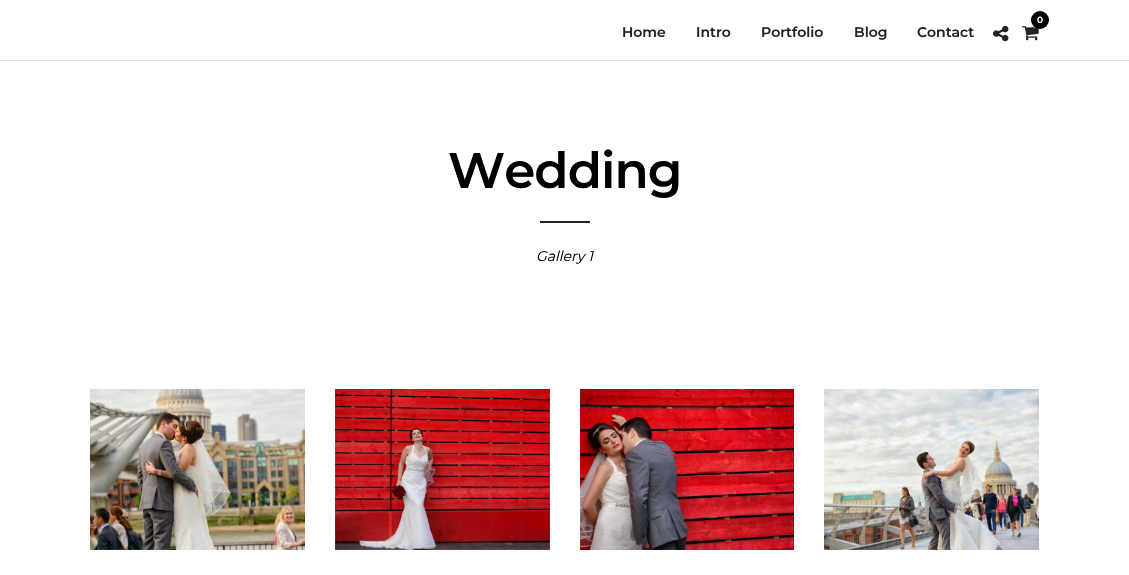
#include "include/core/SkBlurTypes.h"
#include "include/core/SkCanvas.h"
#include "include/core/SkData.h"
#include "include/core/SkFont.h"
#include "include/core/SkFontMgr.h"
#include "include/core/SkImage.h"
#include "include/core/SkMaskFilter.h"
#include "include/core/SkPaint.h"
#include "include/core/SkPathBuilder.h"
#include "include/core/SkTextBlob.h"
#include "include/effects/SkDashPathEffect.h"
#include "include/effects/SkGradientShader.h"
#include "include/utils/SkParsePath.h"

extern sk_sp<SkFontMgr> fontMgr;

void draw(SkCanvas* canvas) {
  SkPaint p;
  p.setAntiAlias(true);
  auto spacedText = [&](const char* s, float x, float y, const SkFont& font, const SkPaint& ink, float letter, float word) {
    std::vector<SkGlyphID> glyphs(font.countText(s, strlen(s), SkTextEncoding::kUTF8));
    std::vector<float> xs(glyphs.size());
    font.textToGlyphs(s, strlen(s), SkTextEncoding::kUTF8, glyphs);
    font.getXPos(glyphs, xs, x);
    float extra = 0;
    for (size_t i = 0; i < glyphs.size(); i++) {
      xs[i] += extra;
      extra += letter + word * (glyphs[i] == font.unicharToGlyph(' '));
    }
    canvas->drawTextBlob(SkTextBlob::MakeFromPosHGlyphs(glyphs, xs, y, font), 0, 0, ink);
  };
  canvas->clear(SK_ColorWHITE);
  p.setColor(SkColorSetRGB(225, 225, 225));
  canvas->drawRect(SkRect::MakeLTRB(0, 60, 1129, 61), p);
  canvas->drawImageRect(SkImages::DeferredFromEncodedData(SkData::MakeFromFileName("images/1.png")), SkRect::MakeLTRB(1022, 26, 1039, 41), SkSamplingOptions());
  p.setColor(SK_ColorBLACK);
  canvas->drawCircle(1040, 20, 9, p);
  canvas->drawImageRect(SkImages::DeferredFromEncodedData(SkData::MakeFromFileName("images/2.png")), SkRect::MakeLTRB(993, 25, 1009, 42), SkSamplingOptions());
  p.setColor(SkColorSetRGB(34, 34, 34));
  canvas->drawRect(SkRect::MakeLTRB(540, 221, 590, 223), p);
  canvas->drawImageRect(SkImages::DeferredFromEncodedData(SkData::MakeFromFileName("images/3.png")), SkRect::MakeLTRB(90, 389, 305, 550), SkSamplingOptions());
  canvas->drawImageRect(SkImages::DeferredFromEncodedData(SkData::MakeFromFileName("images/4.png")), SkRect::MakeLTRB(335, 389, 550, 550), SkSamplingOptions());
  canvas->drawImageRect(SkImages::DeferredFromEncodedData(SkData::MakeFromFileName("images/5.png")), SkRect::MakeLTRB(580, 389, 794, 550), SkSamplingOptions());
  canvas->drawImageRect(SkImages::DeferredFromEncodedData(SkData::MakeFromFileName("images/6.png")), SkRect::MakeLTRB(824, 389, 1039, 550), SkSamplingOptions());
  SkFont font1(fontMgr->matchFamilyStyle("Montserrat", SkFontStyle(600, SkFontStyle::kNormal_Width, SkFontStyle::kUpright_Slant)), 9);
  font1.setSubpixel(true);
  p.setColor(SK_ColorWHITE);
  canvas->drawString("0", 1037, 23, font1, p);
  SkFont font2(fontMgr->matchFamilyStyle("Montserrat", SkFontStyle(600, SkFontStyle::kNormal_Width, SkFontStyle::kUpright_Slant)), 14);
  font2.setSubpixel(true);
  p.setColor(SkColorSetRGB(34, 34, 34));
  canvas->drawString("Home", 622, 37, font2, p);
  canvas->drawString("Intro", 696, 37, font2, p);
  canvas->drawString("Portfolio", 761, 37, font2, p);
  canvas->drawString("Blog", 854, 37, font2, p);
  canvas->drawString("Contact", 917, 37, font2, p);
  SkFont font3(fontMgr->matchFamilyStyle("Montserrat", SkFontStyle(600, SkFontStyle::kNormal_Width, SkFontStyle::kUpright_Slant)), 50);
  font3.setSubpixel(true);
  p.setColor(SK_ColorBLACK);
  spacedText("Wedding", 448, 188, font3, p, -1, 0);
  SkFont font4(fontMgr->matchFamilyStyle("Montserrat", SkFontStyle::Italic()), 14);
  font4.setSubpixel(true);
  canvas->drawString("Gallery 1", 536, 261, font4, p);
}
